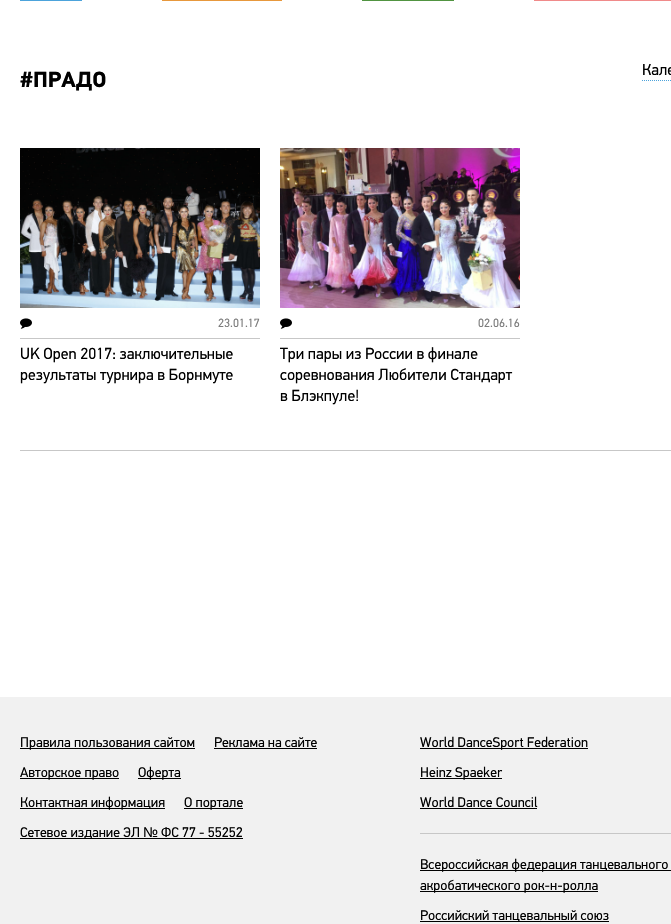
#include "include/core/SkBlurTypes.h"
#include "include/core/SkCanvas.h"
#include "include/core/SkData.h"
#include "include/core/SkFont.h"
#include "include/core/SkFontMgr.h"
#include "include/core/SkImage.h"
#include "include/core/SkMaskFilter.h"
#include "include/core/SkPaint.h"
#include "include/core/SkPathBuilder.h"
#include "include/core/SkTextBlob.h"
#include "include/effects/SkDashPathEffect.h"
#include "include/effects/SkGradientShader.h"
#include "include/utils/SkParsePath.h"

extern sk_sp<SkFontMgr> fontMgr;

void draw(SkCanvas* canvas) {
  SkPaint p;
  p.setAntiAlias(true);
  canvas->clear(SK_ColorWHITE);
  p.setColor(SkColorSetRGB(76, 163, 219));
  canvas->drawRect(SkRect::MakeLTRB(20, 0, 82, 1), p);
  p.setColor(SkColorSetRGB(231, 152, 60));
  canvas->drawRect(SkRect::MakeLTRB(162, 0, 282, 1), p);
  p.setColor(SkColorSetRGB(81, 148, 65));
  canvas->drawRect(SkRect::MakeLTRB(362, 0, 454, 1), p);
  p.setColor(SkColorSetRGB(240, 138, 138));
  canvas->drawRect(SkRect::MakeLTRB(534, 0, 671, 1), p);
  p.setStyle(SkPaint::kStroke_Style);
  p.setStrokeWidth(1);
  p.setColor(SkColorSetRGB(76, 163, 219));
  p.setPathEffect(SkDashPathEffect::Make({{1, 1}}, 0));
  canvas->drawPath(SkPathBuilder().moveTo(642, 80.5f).lineTo(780, 80.5f).detach(), p);
  p.setPathEffect(nullptr);
  canvas->drawImageRect(SkImages::DeferredFromEncodedData(SkData::MakeFromFileName("images/1.png")), SkRect::MakeLTRB(20, 148, 260, 308), SkSamplingOptions());
  p.setStyle(SkPaint::kFill_Style);
  p.setColor(SkColorSetRGB(199, 199, 199));
  canvas->drawRect(SkRect::MakeLTRB(20, 338, 260, 339), p);
  canvas->drawImageRect(SkImages::DeferredFromEncodedData(SkData::MakeFromFileName("images/2.png")), SkRect::MakeLTRB(20, 318, 32, 329), SkSamplingOptions());
  canvas->drawImageRect(SkImages::DeferredFromEncodedData(SkData::MakeFromFileName("images/3.png")), SkRect::MakeLTRB(280, 148, 520, 308), SkSamplingOptions());
  canvas->drawRect(SkRect::MakeLTRB(280, 338, 520, 339), p);
  canvas->drawImageRect(SkImages::DeferredFromEncodedData(SkData::MakeFromFileName("images/2.png")), SkRect::MakeLTRB(280, 318, 292, 329), SkSamplingOptions());
  canvas->drawRect(SkRect::MakeLTRB(20, 450, 671, 451), p);
  p.setColor(SkColorSetRGB(241, 241, 241));
  canvas->drawRect(SkRect::MakeLTRB(0, 697, 671, 924), p);
  p.setColor(SK_ColorBLACK);
  canvas->drawRect(SkRect::MakeLTRB(20, 748, 195, 749), p);
  canvas->drawRect(SkRect::MakeLTRB(214, 748, 317, 749), p);
  canvas->drawRect(SkRect::MakeLTRB(20, 778, 119, 779), p);
  canvas->drawRect(SkRect::MakeLTRB(138, 778, 181, 779), p);
  canvas->drawRect(SkRect::MakeLTRB(20, 808, 165, 809), p);
  canvas->drawRect(SkRect::MakeLTRB(184, 808, 243, 809), p);
  canvas->drawRect(SkRect::MakeLTRB(20, 838, 243, 839), p);
  canvas->drawRect(SkRect::MakeLTRB(420, 748, 588, 749), p);
  canvas->drawRect(SkRect::MakeLTRB(420, 778, 502, 779), p);
  canvas->drawRect(SkRect::MakeLTRB(420, 808, 537, 809), p);
  p.setColor(SkColorSetRGB(199, 199, 199));
  canvas->drawRect(SkRect::MakeLTRB(420, 833, 671, 834), p);
  p.setColor(SK_ColorBLACK);
  canvas->drawRect(SkRect::MakeLTRB(420, 870, 671, 871), p);
  canvas->drawRect(SkRect::MakeLTRB(420, 891, 598, 892), p);
  canvas->drawRect(SkRect::MakeLTRB(420, 921, 609, 922), p);
  SkFont font1(fontMgr->matchFamilyStyle("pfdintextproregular", SkFontStyle::Normal()), 16);
  font1.setSubpixel(true);
  canvas->drawString("Кале", 642, 75, font1, p);
  SkFont font2(fontMgr->matchFamilyStyle("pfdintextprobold", SkFontStyle::Bold()), 22);
  font2.setSubpixel(true);
  canvas->drawString("#ПРАДО", 20, 87, font2, p);
  SkFont font3(fontMgr->matchFamilyStyle("pfdintextproregular", SkFontStyle::Normal()), 12);
  font3.setSubpixel(true);
  p.setColor(SkColorSetRGB(124, 124, 124));
  canvas->drawString("23.01.17", 218, 327, font3, p);
  p.setColor(SK_ColorBLACK);
  canvas->drawString("UK Open 2017: заключительные", 20, 359, font1, p);
  canvas->drawString("результаты турнира в Борнмуте", 20, 380, font1, p);
  p.setColor(SkColorSetRGB(124, 124, 124));
  canvas->drawString("02.06.16", 478, 327, font3, p);
  p.setColor(SK_ColorBLACK);
  canvas->drawString("Три пары из России в финале", 280, 359, font1, p);
  canvas->drawString("соревнования Любители Стандарт", 280, 380, font1, p);
  canvas->drawString("в Блэкпуле!", 280, 401, font1, p);
  SkFont font4(fontMgr->matchFamilyStyle("pfdintextproregular", SkFontStyle::Normal()), 14);
  font4.setSubpixel(true);
  canvas->drawString("Правила пользования сайтом", 20, 747, font4, p);
  canvas->drawString("Реклама на сайте", 214, 747, font4, p);
  canvas->drawString("Авторское право", 20, 777, font4, p);
  canvas->drawString("Оферта", 138, 777, font4, p);
  canvas->drawString("Контактная информация", 20, 807, font4, p);
  canvas->drawString("О портале", 184, 807, font4, p);
  canvas->drawString("Сетевое издание ЭЛ", 20, 837, font4, p);
  SkFont font5(fontMgr->matchFamilyStyle("Liberation Sans", SkFontStyle::Normal()), 14);
  font5.setSubpixel(true);
  canvas->drawString("№", 143, 837, font5, p);
  canvas->drawString("ФС 77 - 55252", 161, 837, font4, p);
  canvas->drawString("World DanceSport Federation", 420, 747, font4, p);
  canvas->drawString("Heinz Spaeker", 420, 777, font4, p);
  canvas->drawString("World Dance Council", 420, 807, font4, p);
  canvas->drawString("Всероссийская федерация танцевального", 420, 869, font4, p);
  canvas->drawString("акробатического рок-н-ролла", 420, 890, font4, p);
  canvas->drawString("Российский танцевальный союз", 420, 920, font4, p);
}
